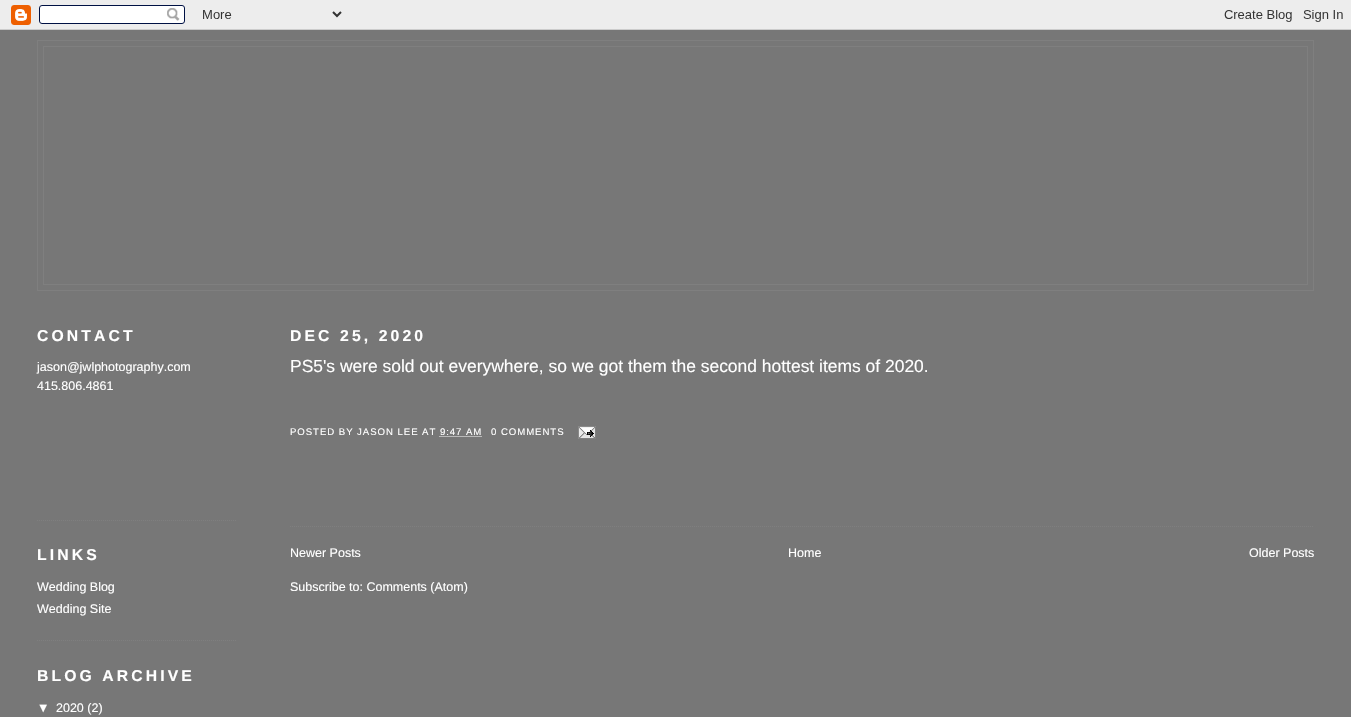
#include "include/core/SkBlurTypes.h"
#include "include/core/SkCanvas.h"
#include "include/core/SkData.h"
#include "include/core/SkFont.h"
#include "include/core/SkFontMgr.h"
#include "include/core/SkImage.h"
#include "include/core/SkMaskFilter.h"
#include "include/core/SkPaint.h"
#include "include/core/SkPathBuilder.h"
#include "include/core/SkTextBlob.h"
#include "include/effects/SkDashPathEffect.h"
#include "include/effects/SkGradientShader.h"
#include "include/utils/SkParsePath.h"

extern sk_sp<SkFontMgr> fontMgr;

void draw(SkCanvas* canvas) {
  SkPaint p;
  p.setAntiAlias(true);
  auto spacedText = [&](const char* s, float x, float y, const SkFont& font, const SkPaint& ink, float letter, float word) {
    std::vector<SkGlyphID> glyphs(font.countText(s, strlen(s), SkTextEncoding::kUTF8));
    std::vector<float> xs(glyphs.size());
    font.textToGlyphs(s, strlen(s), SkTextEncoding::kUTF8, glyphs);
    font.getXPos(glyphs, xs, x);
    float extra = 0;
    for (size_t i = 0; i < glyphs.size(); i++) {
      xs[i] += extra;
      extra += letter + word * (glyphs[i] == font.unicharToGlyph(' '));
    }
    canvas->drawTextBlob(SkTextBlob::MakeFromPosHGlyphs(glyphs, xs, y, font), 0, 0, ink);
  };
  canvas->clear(SkColorSetRGB(119, 119, 119));
  canvas->drawImageRect(SkImages::DeferredFromEncodedData(SkData::MakeFromFileName("images/1.png")), SkRect::MakeLTRB(0, 0, 1351, 30), SkSamplingOptions());
  p.setStyle(SkPaint::kStroke_Style);
  p.setStrokeWidth(1);
  p.setColor(SkColorSetRGB(127, 127, 127));
  canvas->drawRect(SkRect::MakeLTRB(37.5f, 40.5f, 1313.5f, 290.5f), p);
  canvas->drawRect(SkRect::MakeLTRB(43.5f, 46.5f, 1307.5f, 284.5f), p);
  p.setPathEffect(SkDashPathEffect::Make({{1, 1}}, 0));
  canvas->drawPath(SkPathBuilder().moveTo(37, 520.5f).lineTo(236, 520.5f).detach(), p);
  p.setPathEffect(nullptr);
  p.setPathEffect(SkDashPathEffect::Make({{1, 1}}, 0));
  canvas->drawPath(SkPathBuilder().moveTo(37, 640.5f).lineTo(236, 640.5f).detach(), p);
  p.setPathEffect(nullptr);
  p.setPathEffect(SkDashPathEffect::Make({{1, 1}}, 0));
  canvas->drawPath(SkPathBuilder().moveTo(290, 526.5f).lineTo(1314, 526.5f).detach(), p);
  p.setPathEffect(nullptr);
  canvas->drawImageRect(SkImages::DeferredFromEncodedData(SkData::MakeFromFileName("images/2.png")), SkRect::MakeLTRB(578, 426, 596, 439), SkSamplingOptions());
  p.setColor(SK_ColorWHITE);
  p.setPathEffect(SkDashPathEffect::Make({{1, 1}}, 0));
  canvas->drawPath(SkPathBuilder().moveTo(439.5f, 436.5f).lineTo(482, 436.5f).detach(), p);
  p.setPathEffect(nullptr);
  SkFont font1(fontMgr->matchFamilyStyle("Liberation Sans", SkFontStyle::Bold()), 15.75f);
  font1.setSubpixel(true);
  p.setStyle(SkPaint::kFill_Style);
  spacedText("CONTACT", 37, 341, font1, p, 3.1f, 0);
  SkFont font2(fontMgr->matchFamilyStyle("Liberation Sans", SkFontStyle::Normal()), 12.5f);
  font2.setSubpixel(true);
  canvas->drawString("jason@jwlphotography.com", 37, 371, font2, p);
  canvas->drawString("415.806.4861", 37, 390, font2, p);
  spacedText("LINKS", 37, 560, font1, p, 3.1f, 0);
  canvas->drawString("Wedding Blog", 37, 591, font2, p);
  canvas->drawString("Wedding Site", 37, 613, font2, p);
  spacedText("BLOG ARCHIVE", 37, 681, font1, p, 3.1f, 0);
  canvas->drawString("▼", 37, 712, font2, p);
  canvas->drawString("2020 (2)", 56, 712, font2, p);
  spacedText("DEC 25, 2020", 290, 341, font1, p, 3.1f, 0);
  SkFont font3(fontMgr->matchFamilyStyle("Liberation Sans", SkFontStyle::Normal()), 17.45f);
  font3.setSubpixel(true);
  canvas->drawString("PS5's were sold out everywhere, so we got them the second hottest items of 2020.", 290, 372, font3, p);
  SkFont font4(fontMgr->matchFamilyStyle("Liberation Sans", SkFontStyle::Normal()), 9.6f);
  font4.setSubpixel(true);
  spacedText("POSTED BY JASON LEE AT 9:47 AM", 290, 435, font4, p, 0.95f, 0);
  spacedText("0 COMMENTS", 491, 435, font4, p, 0.95f, 0);
  canvas->drawString("Newer Posts", 290, 557, font2, p);
  canvas->drawString("Home", 788, 557, font2, p);
  canvas->drawString("Older Posts", 1249, 557, font2, p);
  canvas->drawString("Subscribe to: Comments (Atom)", 290, 591, font2, p);
}
